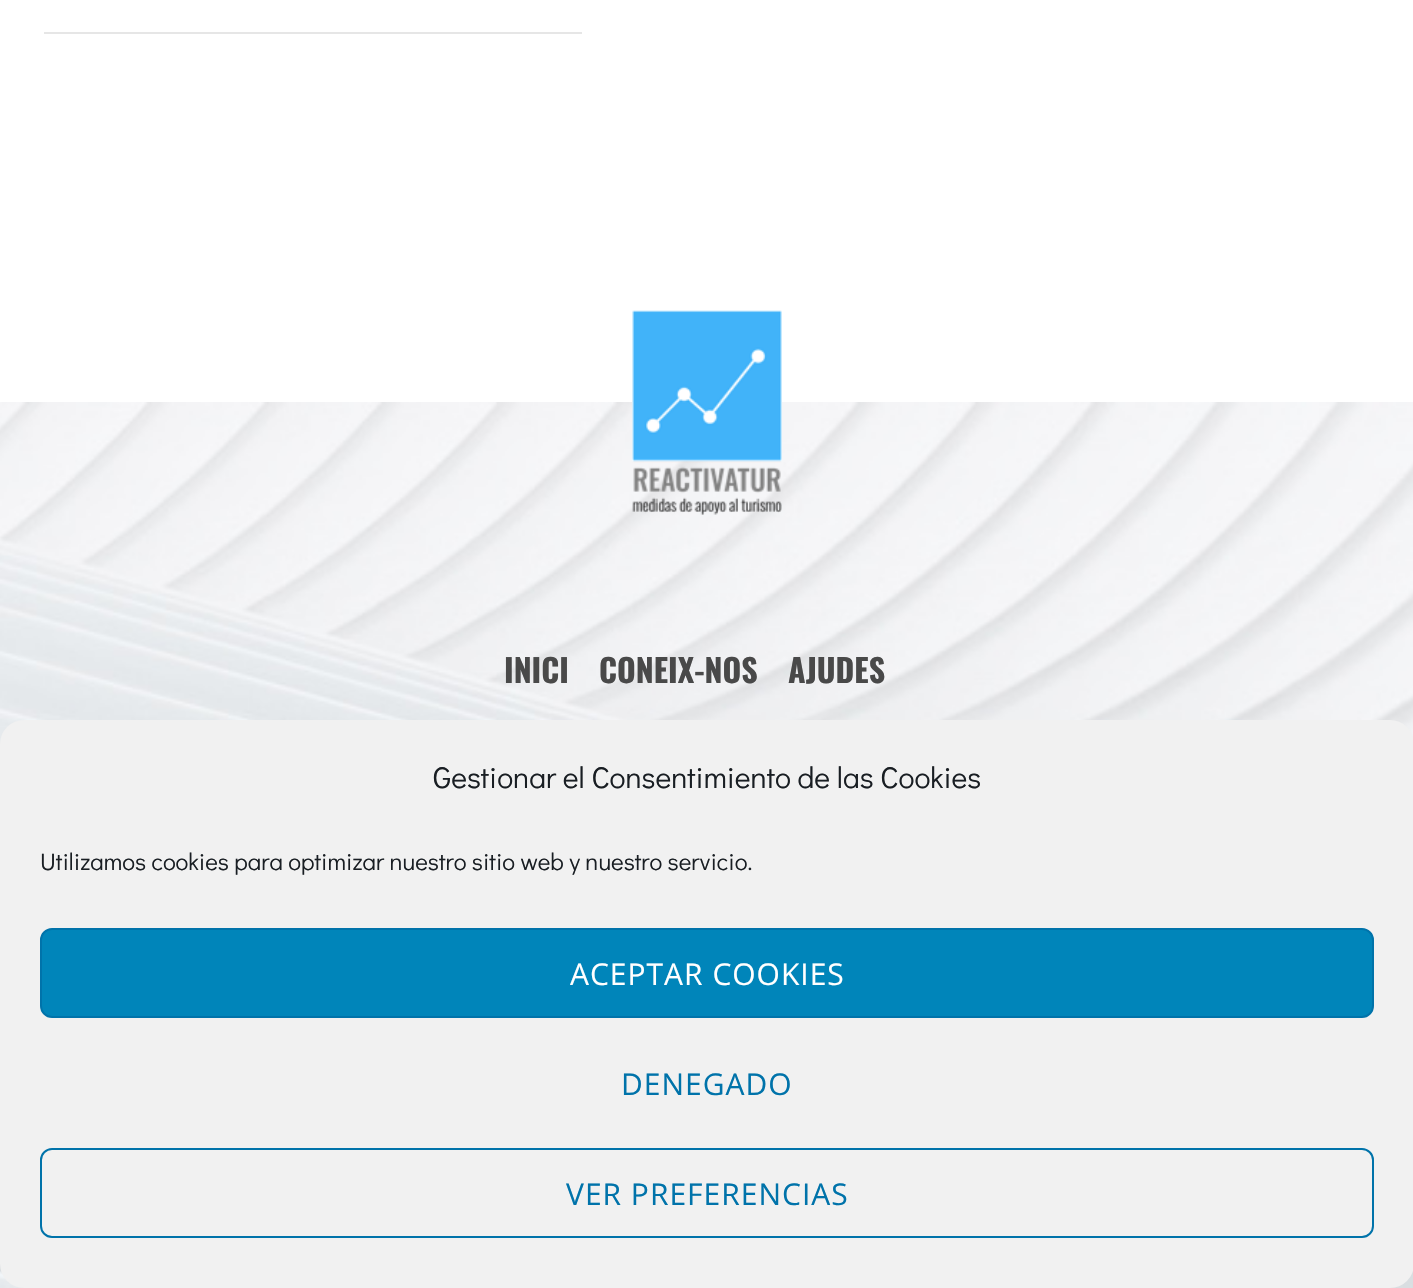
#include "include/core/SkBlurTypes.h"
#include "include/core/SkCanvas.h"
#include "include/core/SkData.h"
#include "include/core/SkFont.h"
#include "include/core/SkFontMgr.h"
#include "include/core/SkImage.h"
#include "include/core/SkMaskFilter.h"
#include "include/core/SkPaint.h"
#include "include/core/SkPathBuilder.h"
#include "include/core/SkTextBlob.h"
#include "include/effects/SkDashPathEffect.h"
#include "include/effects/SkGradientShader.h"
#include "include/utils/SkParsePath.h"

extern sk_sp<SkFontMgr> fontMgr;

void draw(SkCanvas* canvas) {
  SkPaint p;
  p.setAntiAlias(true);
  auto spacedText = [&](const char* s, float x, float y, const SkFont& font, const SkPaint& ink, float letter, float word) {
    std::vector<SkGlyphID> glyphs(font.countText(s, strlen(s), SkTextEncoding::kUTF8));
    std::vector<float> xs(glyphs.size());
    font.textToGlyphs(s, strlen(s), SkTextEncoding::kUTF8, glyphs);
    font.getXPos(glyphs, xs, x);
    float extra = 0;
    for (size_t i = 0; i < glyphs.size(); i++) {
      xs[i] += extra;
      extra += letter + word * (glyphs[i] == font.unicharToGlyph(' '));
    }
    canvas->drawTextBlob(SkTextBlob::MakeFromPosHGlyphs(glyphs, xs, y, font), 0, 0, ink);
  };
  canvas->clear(SK_ColorWHITE);
  p.setColor(SkColorSetRGB(230, 230, 230));
  canvas->drawRect(SkRect::MakeLTRB(44, 32, 582, 34), p);
  canvas->drawImageRect(SkImages::DeferredFromEncodedData(SkData::MakeFromFileName("images/1.png")), SkRect::MakeLTRB(0, 402, 1413, 1288), SkSamplingOptions());
  canvas->drawImageRect(SkImages::DeferredFromEncodedData(SkData::MakeFromFileName("images/2.png")), SkRect::MakeLTRB(632, 310, 782, 515), SkSamplingOptions());
  p.setColor(SkColorSetRGB(241, 241, 241));
  canvas->drawRoundRect(SkRect::MakeLTRB(0, 720, 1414, 1288), 24, 24, p);
  p.setColor(SkColorSetRGB(0, 133, 186));
  canvas->drawRoundRect(SkRect::MakeLTRB(41, 929, 1373, 1017), 11, 11, p);
  p.setStyle(SkPaint::kStroke_Style);
  p.setStrokeWidth(2);
  p.setColor(SkColorSetRGB(0, 115, 170));
  canvas->drawRoundRect(SkRect::MakeLTRB(41, 929, 1373, 1017), 11, 11, p);
  canvas->drawRoundRect(SkRect::MakeLTRB(41, 1149, 1373, 1237), 11, 11, p);
  SkFont font1(fontMgr->matchFamilyStyle("Oswald", SkFontStyle::Bold()), 32);
  font1.setSubpixel(true);
  p.setStyle(SkPaint::kFill_Style);
  p.setColor(SkColorSetRGB(73, 73, 73));
  canvas->drawString("INICI", 504, 683, font1, p);
  canvas->drawString("CONEIX-NOS", 599, 683, font1, p);
  canvas->drawString("AJUDES", 788, 683, font1, p);
  SkFont font2(fontMgr->matchFamilyStyle("Didact Gothic", SkFontStyle::Normal()), 30);
  font2.setSubpixel(true);
  p.setColor(SkColorSetRGB(25, 30, 35));
  canvas->drawString("Gestionar el Consentimiento de las Cookies", 433, 788, font2, p);
  SkFont font3(fontMgr->matchFamilyStyle("Didact Gothic", SkFontStyle::Normal()), 24);
  font3.setSubpixel(true);
  canvas->drawString("Utilizamos cookies para optimizar nuestro sitio web y nuestro servicio.", 40, 870, font3, p);
  SkFont font4(fontMgr->matchFamilyStyle("Open Sans", SkFontStyle::Normal()), 30);
  font4.setSubpixel(true);
  p.setColor(SK_ColorWHITE);
  spacedText("ACEPTAR COOKIES", 570, 985, font4, p, 1, 0);
  p.setColor(SkColorSetRGB(0, 115, 170));
  spacedText("DENEGADO", 621, 1095, font4, p, 1, 0);
  spacedText("VER PREFERENCIAS", 566, 1205, font4, p, 1, 0);
}
